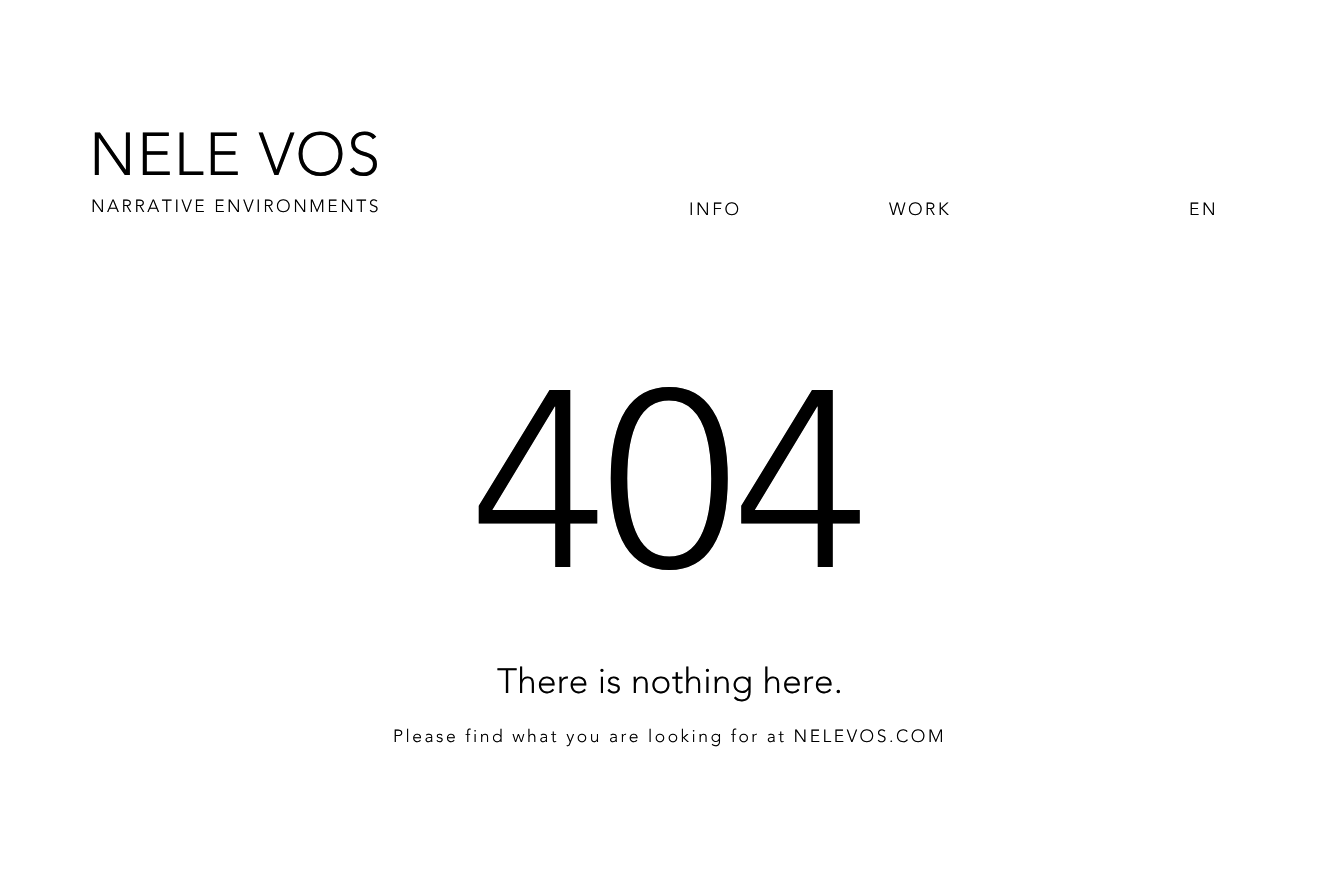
#include "include/core/SkBlurTypes.h"
#include "include/core/SkCanvas.h"
#include "include/core/SkData.h"
#include "include/core/SkFont.h"
#include "include/core/SkFontMgr.h"
#include "include/core/SkImage.h"
#include "include/core/SkMaskFilter.h"
#include "include/core/SkPaint.h"
#include "include/core/SkPathBuilder.h"
#include "include/core/SkTextBlob.h"
#include "include/effects/SkDashPathEffect.h"
#include "include/effects/SkGradientShader.h"
#include "include/utils/SkParsePath.h"

extern sk_sp<SkFontMgr> fontMgr;

void draw(SkCanvas* canvas) {
  SkPaint p;
  p.setAntiAlias(true);
  auto spacedText = [&](const char* s, float x, float y, const SkFont& font, const SkPaint& ink, float letter, float word) {
    std::vector<SkGlyphID> glyphs(font.countText(s, strlen(s), SkTextEncoding::kUTF8));
    std::vector<float> xs(glyphs.size());
    font.textToGlyphs(s, strlen(s), SkTextEncoding::kUTF8, glyphs);
    font.getXPos(glyphs, xs, x);
    float extra = 0;
    for (size_t i = 0; i < glyphs.size(); i++) {
      xs[i] += extra;
      extra += letter + word * (glyphs[i] == font.unicharToGlyph(' '));
    }
    canvas->drawTextBlob(SkTextBlob::MakeFromPosHGlyphs(glyphs, xs, y, font), 0, 0, ink);
  };
  canvas->clear(SK_ColorWHITE);
  SkFont font1(fontMgr->matchFamilyStyle("Avenir", SkFontStyle(300, SkFontStyle::kNormal_Width, SkFontStyle::kUpright_Slant)), 60);
  font1.setSubpixel(true);
  p.setColor(SK_ColorBLACK);
  spacedText("NELE VOS", 89, 175, font1, p, 1.25f, 0);
  SkFont font2(fontMgr->matchFamilyStyle("Avenir", SkFontStyle(300, SkFontStyle::kNormal_Width, SkFontStyle::kUpright_Slant)), 17.5f);
  font2.setSubpixel(true);
  spacedText("NARRATIVE ENVIRONMENTS", 91, 212, font2, p, 2.5f, 0);
  spacedText("INFO", 689, 215, font2, p, 2.5f, 0);
  spacedText("WORK", 889, 215, font2, p, 2.5f, 0);
  spacedText("EN", 1189, 215, font2, p, 2.5f, 0);
  SkFont font3(fontMgr->matchFamilyStyle("Avenir", SkFontStyle(300, SkFontStyle::kNormal_Width, SkFontStyle::kUpright_Slant)), 250);
  font3.setSubpixel(true);
  spacedText("404", 473, 567, font3, p, 1.25f, 0);
  SkFont font4(fontMgr->matchFamilyStyle("Avenir", SkFontStyle(300, SkFontStyle::kNormal_Width, SkFontStyle::kUpright_Slant)), 35);
  font4.setSubpixel(true);
  spacedText("There is nothing here.", 497, 693, font4, p, 0.25f, 0);
  spacedText("Please find what you are looking for at NELEVOS.COM", 393, 742, font2, p, 2.5f, 0);
}
